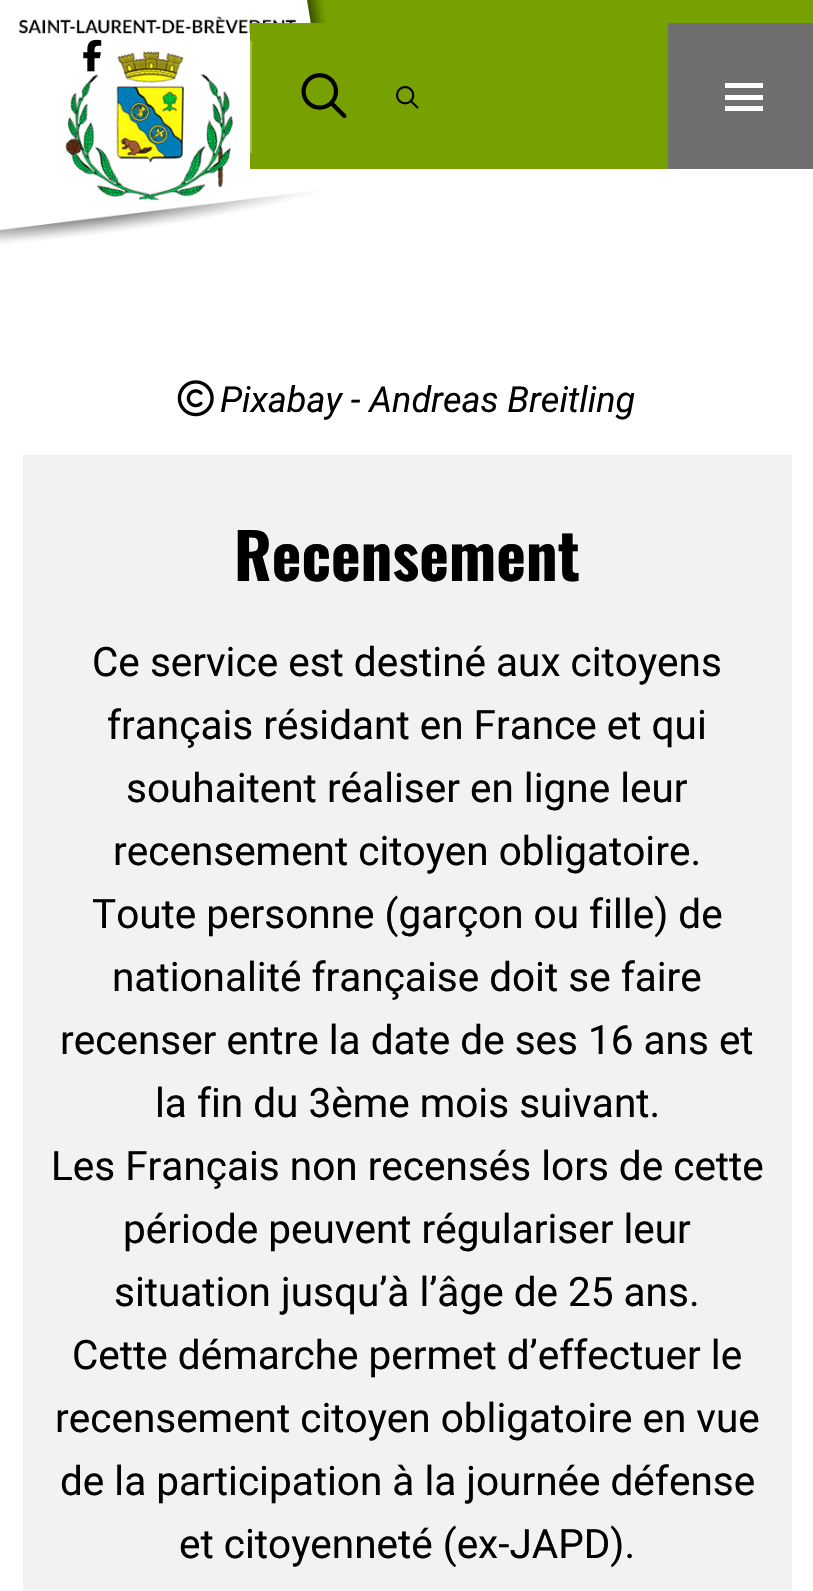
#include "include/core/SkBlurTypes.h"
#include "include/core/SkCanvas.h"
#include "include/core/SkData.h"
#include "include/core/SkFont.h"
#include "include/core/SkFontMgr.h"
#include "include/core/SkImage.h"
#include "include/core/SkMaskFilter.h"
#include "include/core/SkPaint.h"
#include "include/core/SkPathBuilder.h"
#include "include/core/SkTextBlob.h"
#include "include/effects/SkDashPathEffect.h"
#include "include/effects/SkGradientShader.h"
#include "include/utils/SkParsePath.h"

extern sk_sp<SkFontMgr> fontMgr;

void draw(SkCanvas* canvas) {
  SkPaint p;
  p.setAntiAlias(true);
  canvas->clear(SK_ColorWHITE);
  p.setColor(SkColorSetRGB(119, 161, 0));
  canvas->drawRect(SkRect::MakeLTRB(306, 0, 813, 169), p);
  canvas->drawImageRect(SkImages::DeferredFromEncodedData(SkData::MakeFromFileName("images/1.png")), SkRect::MakeLTRB(0, 0, 336, 244), SkSamplingOptions());
  p.setColor(SkColorSetARGB(77, 255, 255, 255));
  canvas->drawRect(SkRect::MakeLTRB(56, 23, 58, 34), p);
  canvas->drawImageRect(SkImages::DeferredFromEncodedData(SkData::MakeFromFileName("images/2.png")), SkRect::MakeLTRB(83, 39, 102, 72), SkSamplingOptions());
  p.setColor(SkColorSetRGB(119, 161, 0));
  canvas->drawRect(SkRect::MakeLTRB(250, 23, 336, 169), p);
  p.setColor(SkColorSetRGB(160, 189, 77));
  canvas->drawRect(SkRect::MakeLTRB(250, 41, 252, 153), p);
  canvas->drawImageRect(SkImages::DeferredFromEncodedData(SkData::MakeFromFileName("images/3.png")), SkRect::MakeLTRB(301, 73, 347, 119), SkSamplingOptions());
  canvas->drawImageRect(SkImages::DeferredFromEncodedData(SkData::MakeFromFileName("images/4.png")), SkRect::MakeLTRB(396, 86, 419, 109), SkSamplingOptions());
  p.setColor(SkColorSetRGB(112, 111, 111));
  canvas->drawRect(SkRect::MakeLTRB(668, 23, 813, 169), p);
  p.setColor(SK_ColorWHITE);
  canvas->drawRect(SkRect::MakeLTRB(725, 83, 763, 88), p);
  canvas->drawRect(SkRect::MakeLTRB(725, 95, 763, 100), p);
  canvas->drawRect(SkRect::MakeLTRB(725, 106, 763, 111), p);
  canvas->drawImageRect(SkImages::DeferredFromEncodedData(SkData::MakeFromFileName("images/5.png")), SkRect::MakeLTRB(177, 380, 214, 417), SkSamplingOptions());
  p.setColor(SkColorSetRGB(242, 242, 242));
  canvas->drawRect(SkRect::MakeLTRB(23, 455, 792, 1591), p);
  SkFont font1(fontMgr->matchFamilyStyle("Roboto", SkFontStyle::Italic()), 36);
  font1.setSubpixel(true);
  p.setColor(SK_ColorBLACK);
  canvas->drawString("Pixabay - Andreas Breitling", 220, 412, font1, p);
  SkFont font2(fontMgr->matchFamilyStyle("Oswald", SkFontStyle::Bold()), 63);
  font2.setSubpixel(true);
  canvas->drawString("Recensement", 234, 581, font2, p);
  SkFont font3(fontMgr->matchFamilyStyle("Roboto", SkFontStyle::Normal()), 40.5f);
  font3.setSubpixel(true);
  canvas->drawString("Ce service est destiné aux citoyens", 92, 676, font3, p);
  canvas->drawString("français résidant en France et qui", 107, 739, font3, p);
  canvas->drawString("souhaitent réaliser en ligne leur", 126, 802, font3, p);
  canvas->drawString("recensement citoyen obligatoire.", 113, 865, font3, p);
  canvas->drawString("Toute personne (garçon ou fille) de", 92, 928, font3, p);
  canvas->drawString("nationalité française doit se faire", 112, 991, font3, p);
  canvas->drawString("recenser entre la date de ses 16 ans et", 60, 1054, font3, p);
  canvas->drawString("la fin du 3ème mois suivant.", 155, 1117, font3, p);
  canvas->drawString("Les Français non recensés lors de cette", 51, 1180, font3, p);
  canvas->drawString("période peuvent régulariser leur", 123, 1243, font3, p);
  canvas->drawString("situation jusqu’à l’âge de 25 ans.", 114, 1306, font3, p);
  canvas->drawString("Cette démarche permet d’effectuer le", 72, 1369, font3, p);
  canvas->drawString("recensement citoyen obligatoire en vue", 55, 1432, font3, p);
  canvas->drawString("de la participation à la journée défense", 60, 1495, font3, p);
  canvas->drawString("et citoyenneté (ex-JAPD).", 179, 1558, font3, p);
}
